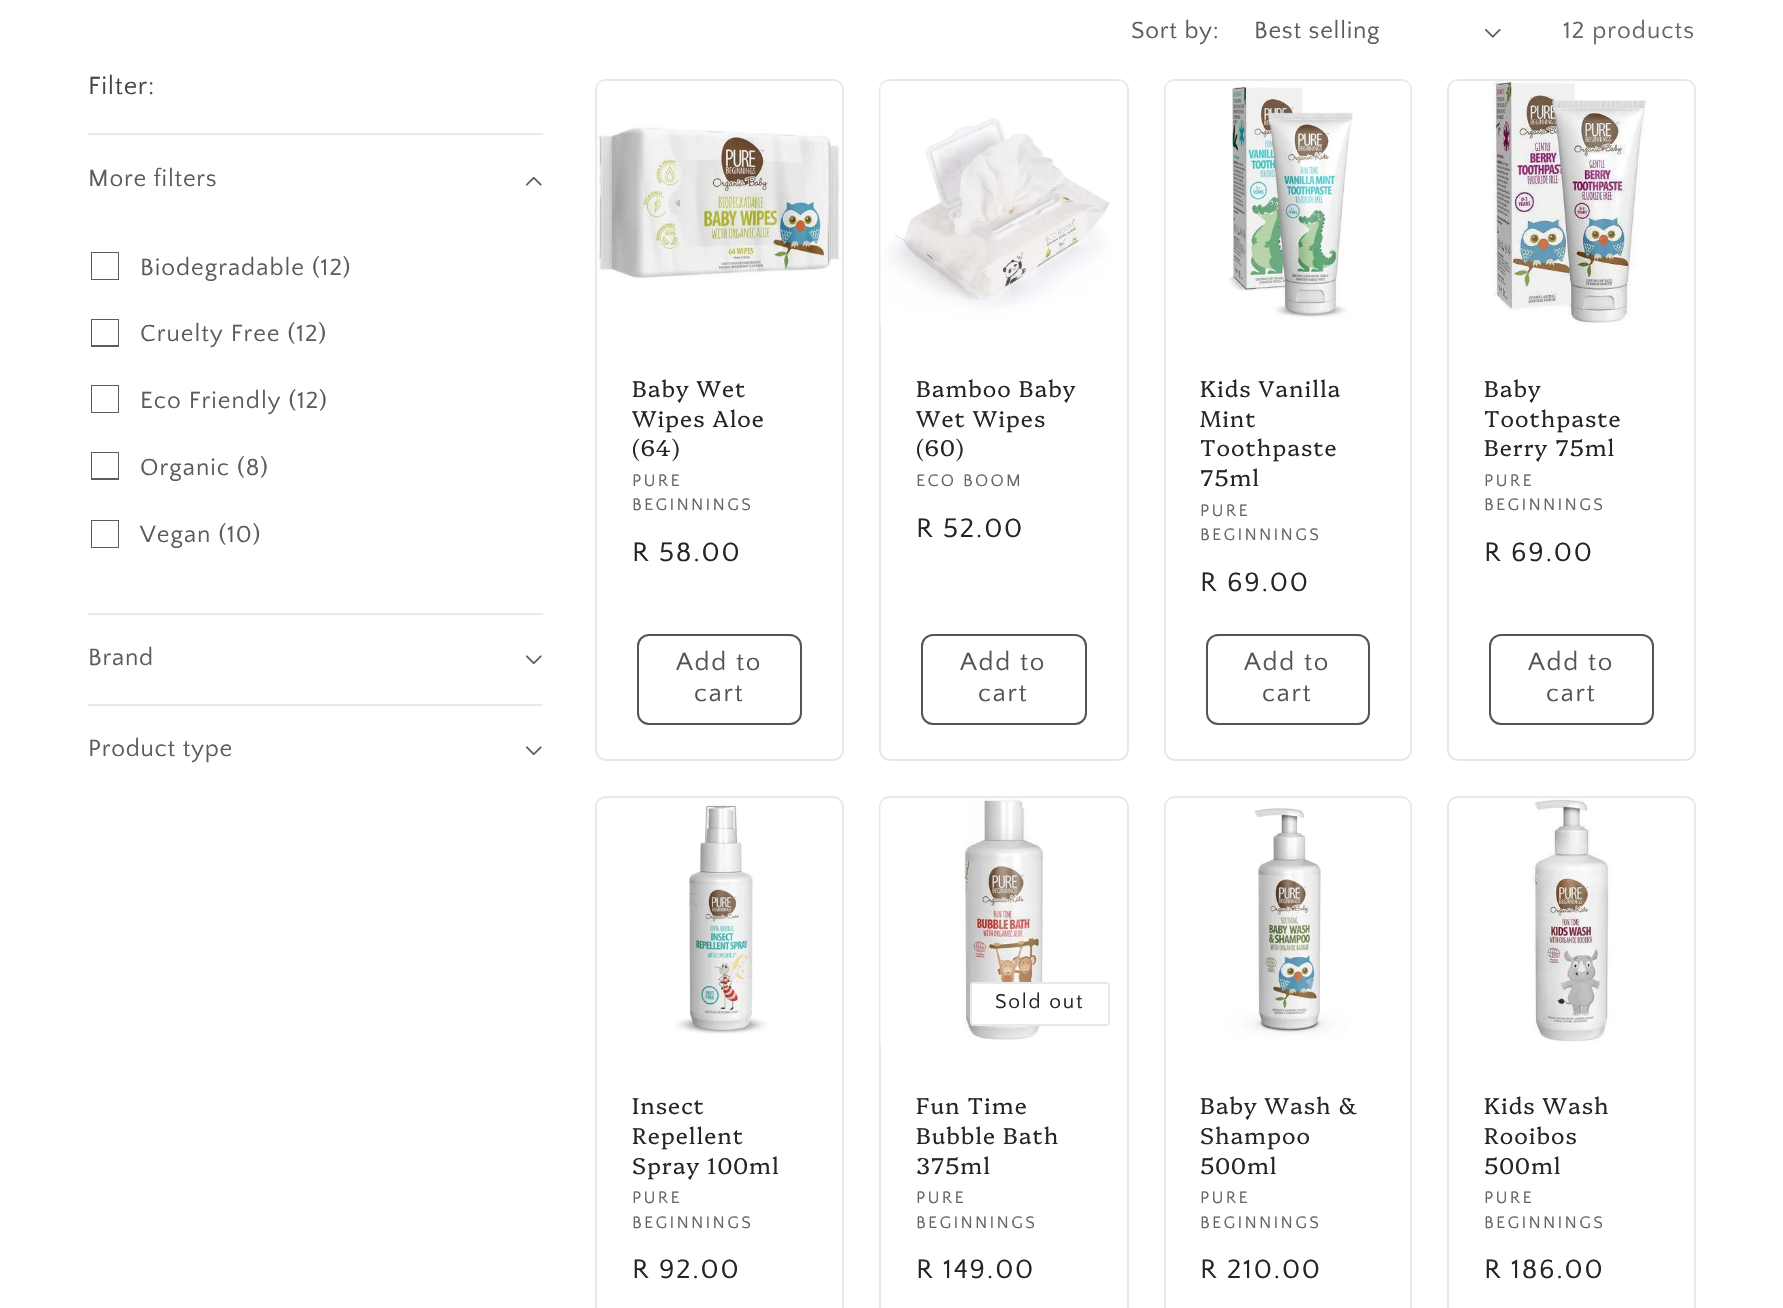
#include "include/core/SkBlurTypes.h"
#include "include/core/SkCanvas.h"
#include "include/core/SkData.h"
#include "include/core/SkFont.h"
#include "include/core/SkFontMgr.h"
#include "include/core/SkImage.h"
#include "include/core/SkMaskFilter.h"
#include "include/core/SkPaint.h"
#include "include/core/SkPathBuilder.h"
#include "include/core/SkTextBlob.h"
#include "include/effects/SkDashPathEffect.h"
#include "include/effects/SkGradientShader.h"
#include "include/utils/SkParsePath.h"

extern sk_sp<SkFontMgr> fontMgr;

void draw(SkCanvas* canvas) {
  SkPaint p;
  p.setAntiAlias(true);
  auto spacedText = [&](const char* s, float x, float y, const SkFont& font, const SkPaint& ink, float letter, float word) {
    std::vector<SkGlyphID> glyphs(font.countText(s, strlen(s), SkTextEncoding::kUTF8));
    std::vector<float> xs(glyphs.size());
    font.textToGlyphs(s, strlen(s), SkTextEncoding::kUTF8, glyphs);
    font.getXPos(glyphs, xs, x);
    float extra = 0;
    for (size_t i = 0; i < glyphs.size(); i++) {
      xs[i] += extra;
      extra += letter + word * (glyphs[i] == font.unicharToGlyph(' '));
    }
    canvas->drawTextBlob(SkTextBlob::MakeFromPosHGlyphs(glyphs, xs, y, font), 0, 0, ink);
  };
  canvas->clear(SK_ColorWHITE);
  canvas->drawImageRect(SkImages::DeferredFromEncodedData(SkData::MakeFromFileName("images/1.png")), SkRect::MakeLTRB(1484, 28, 1501, 38), SkSamplingOptions());
  p.setColor(SkColorSetRGB(233, 233, 233));
  canvas->drawRect(SkRect::MakeLTRB(88, 133, 543, 135), p);
  canvas->drawImageRect(SkImages::DeferredFromEncodedData(SkData::MakeFromFileName("images/2.png")), SkRect::MakeLTRB(525, 177, 542, 186), SkSamplingOptions());
  canvas->save();
  canvas->clipRect(SkRect::MakeLTRB(91, 252, 119, 280));
  p.setStyle(SkPaint::kStroke_Style);
  p.setStrokeWidth(2);
  p.setColor(SkColorSetRGB(92, 92, 92));
  canvas->drawRect(SkRect::MakeLTRB(91, 252, 119, 280), p);
  canvas->restore();
  canvas->save();
  canvas->clipRect(SkRect::MakeLTRB(91, 319, 119, 347));
  canvas->drawRect(SkRect::MakeLTRB(91, 319, 119, 346), p);
  canvas->restore();
  canvas->save();
  canvas->clipRect(SkRect::MakeLTRB(91, 385, 119, 413));
  canvas->drawRect(SkRect::MakeLTRB(91, 385, 119, 413), p);
  canvas->restore();
  canvas->save();
  canvas->clipRect(SkRect::MakeLTRB(91, 452, 119, 480));
  canvas->drawRect(SkRect::MakeLTRB(91, 452, 119, 479), p);
  canvas->restore();
  canvas->save();
  canvas->clipRect(SkRect::MakeLTRB(91, 520, 119, 548));
  canvas->drawRect(SkRect::MakeLTRB(91, 520, 119, 548), p);
  canvas->restore();
  p.setStyle(SkPaint::kFill_Style);
  p.setColor(SkColorSetRGB(233, 233, 233));
  canvas->drawRect(SkRect::MakeLTRB(88, 613, 543, 615), p);
  canvas->drawImageRect(SkImages::DeferredFromEncodedData(SkData::MakeFromFileName("images/3.png")), SkRect::MakeLTRB(525, 655, 542, 665), SkSamplingOptions());
  canvas->drawRect(SkRect::MakeLTRB(88, 704, 543, 706), p);
  canvas->drawImageRect(SkImages::DeferredFromEncodedData(SkData::MakeFromFileName("images/3.png")), SkRect::MakeLTRB(525, 746, 542, 756), SkSamplingOptions());
  p.setStyle(SkPaint::kStroke_Style);
  canvas->drawRoundRect(SkRect::MakeLTRB(596, 80, 843, 760), 10, 10, p);
  canvas->drawImageRect(SkImages::DeferredFromEncodedData(SkData::MakeFromFileName("images/4.png")), SkRect::MakeLTRB(597, 81, 841, 278), SkSamplingOptions());
  p.setColor(SkColorSetRGB(80, 86, 85));
  canvas->drawRoundRect(SkRect::MakeLTRB(638, 635, 801, 724), 11, 11, p);
  p.setColor(SkColorSetRGB(233, 233, 233));
  canvas->drawRoundRect(SkRect::MakeLTRB(880, 80, 1128, 760), 10, 10, p);
  canvas->drawImageRect(SkImages::DeferredFromEncodedData(SkData::MakeFromFileName("images/5.png")), SkRect::MakeLTRB(880, 81, 1127, 326), SkSamplingOptions());
  p.setColor(SkColorSetRGB(80, 86, 85));
  canvas->drawRoundRect(SkRect::MakeLTRB(922, 635, 1086, 724), 11, 11, p);
  p.setColor(SkColorSetRGB(233, 233, 233));
  canvas->drawRoundRect(SkRect::MakeLTRB(1165, 80, 1411, 760), 10, 10, p);
  canvas->drawImageRect(SkImages::DeferredFromEncodedData(SkData::MakeFromFileName("images/6.png")), SkRect::MakeLTRB(1165, 81, 1411, 325), SkSamplingOptions());
  p.setColor(SkColorSetRGB(80, 86, 85));
  canvas->drawRoundRect(SkRect::MakeLTRB(1207, 635, 1369, 724), 11, 11, p);
  p.setColor(SkColorSetRGB(233, 233, 233));
  canvas->drawRoundRect(SkRect::MakeLTRB(1448, 80, 1695, 760), 10, 10, p);
  canvas->drawImageRect(SkImages::DeferredFromEncodedData(SkData::MakeFromFileName("images/7.png")), SkRect::MakeLTRB(1449, 81, 1694, 325), SkSamplingOptions());
  p.setColor(SkColorSetRGB(80, 86, 85));
  canvas->drawRoundRect(SkRect::MakeLTRB(1490, 635, 1653, 724), 11, 11, p);
  p.setColor(SkColorSetRGB(233, 233, 233));
  canvas->drawRoundRect(SkRect::MakeLTRB(596, 797, 843, 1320), 10, 10, p);
  canvas->drawImageRect(SkImages::DeferredFromEncodedData(SkData::MakeFromFileName("images/8.png")), SkRect::MakeLTRB(597, 800, 768, 1034), SkSamplingOptions());
  canvas->drawRoundRect(SkRect::MakeLTRB(880, 797, 1128, 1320), 10, 10, p);
  canvas->drawImageRect(SkImages::DeferredFromEncodedData(SkData::MakeFromFileName("images/9.png")), SkRect::MakeLTRB(880, 798, 1127, 1043), SkSamplingOptions());
  p.setStyle(SkPaint::kFill_Style);
  p.setColor(SK_ColorWHITE);
  canvas->drawRoundRect(SkRect::MakeLTRB(970, 982, 1110, 1026), 4, 4, p);
  p.setStyle(SkPaint::kStroke_Style);
  p.setColor(SkColorSetARGB(26, 37, 37, 37));
  canvas->drawRoundRect(SkRect::MakeLTRB(971, 983, 1109, 1025), 3, 3, p);
  p.setColor(SkColorSetRGB(233, 233, 233));
  canvas->drawRoundRect(SkRect::MakeLTRB(1165, 797, 1411, 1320), 10, 10, p);
  canvas->drawImageRect(SkImages::DeferredFromEncodedData(SkData::MakeFromFileName("images/10.png")), SkRect::MakeLTRB(1165, 799, 1411, 1043), SkSamplingOptions());
  canvas->drawRoundRect(SkRect::MakeLTRB(1448, 797, 1695, 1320), 10, 10, p);
  canvas->drawImageRect(SkImages::DeferredFromEncodedData(SkData::MakeFromFileName("images/11.png")), SkRect::MakeLTRB(1449, 799, 1694, 1042), SkSamplingOptions());
  SkFont font1(fontMgr->matchFamilyStyle("Quattrocento Sans", SkFontStyle::Normal()), 24.5f);
  font1.setSubpixel(true);
  p.setStyle(SkPaint::kFill_Style);
  p.setColor(SkColorSetRGB(92, 92, 92));
  spacedText("Sort by:", 1131, 38, font1, p, 0.75f, 0);
  spacedText("Best selling", 1254, 38, font1, p, 0.75f, 0);
  p.setColor(SkColorSetRGB(102, 102, 102));
  spacedText("12 products", 1563, 38, font1, p, 1, 0);
  SkFont font2(fontMgr->matchFamilyStyle("Quattrocento Sans", SkFontStyle::Normal()), 26);
  font2.setSubpixel(true);
  p.setColor(SkColorSetRGB(70, 70, 70));
  spacedText("Filter:", 88, 94, font2, p, 0.75f, 0);
  p.setColor(SkColorSetRGB(92, 92, 92));
  spacedText("More filters", 88, 186, font1, p, 0.75f, 0);
  spacedText("Biodegradable (12)", 140, 275, font1, p, 1, 0);
  spacedText("Cruelty Free (12)", 140, 341, font1, p, 1, 0);
  spacedText("Eco Friendly (12)", 140, 408, font1, p, 1, 0);
  spacedText("Organic (8)", 140, 475, font1, p, 1, 0);
  spacedText("Vegan (10)", 140, 542, font1, p, 1, 0);
  spacedText("Brand", 88, 665, font1, p, 0.75f, 0);
  spacedText("Product type", 88, 756, font1, p, 0.75f, 0);
  SkFont font3(fontMgr->matchFamilyStyle("Platypi", SkFontStyle(300, SkFontStyle::kNormal_Width, SkFontStyle::kUpright_Slant)), 22.75f);
  font3.setSubpixel(true);
  p.setColor(SkColorSetRGB(37, 37, 37));
  spacedText("Baby Wet", 632, 397, font3, p, 1, 0);
  spacedText("Wipes Aloe", 632, 427, font3, p, 1, 0);
  spacedText("(64)", 632, 456, font3, p, 1, 0);
  SkFont font4(fontMgr->matchFamilyStyle("Quattrocento Sans", SkFontStyle::Normal()), 17.5f);
  font4.setSubpixel(true);
  p.setColor(SkColorSetRGB(102, 102, 102));
  spacedText("PURE", 632, 486, font4, p, 2.25f, 0);
  spacedText("BEGINNINGS", 632, 510, font4, p, 2.25f, 0);
  SkFont font5(fontMgr->matchFamilyStyle("Quattrocento Sans", SkFontStyle::Normal()), 28);
  font5.setSubpixel(true);
  p.setColor(SkColorSetRGB(37, 37, 37));
  spacedText("R 58.00", 632, 561, font5, p, 1.75f, 0);
  p.setColor(SkColorSetRGB(80, 86, 85));
  spacedText("Add to", 676, 670, font2, p, 1.75f, 0);
  spacedText("cart", 694, 701, font2, p, 1.75f, 0);
  p.setColor(SkColorSetRGB(37, 37, 37));
  spacedText("Bamboo Baby", 916, 397, font3, p, 1, 0);
  spacedText("Wet Wipes", 916, 427, font3, p, 1, 0);
  spacedText("(60)", 916, 456, font3, p, 1, 0);
  p.setColor(SkColorSetRGB(102, 102, 102));
  spacedText("ECO BOOM", 916, 486, font4, p, 2.25f, 0);
  p.setColor(SkColorSetRGB(37, 37, 37));
  spacedText("R 52.00", 916, 537, font5, p, 1.75f, 0);
  p.setColor(SkColorSetRGB(80, 86, 85));
  spacedText("Add to", 960, 670, font2, p, 1.75f, 0);
  spacedText("cart", 978, 701, font2, p, 1.75f, 0);
  p.setColor(SkColorSetRGB(37, 37, 37));
  spacedText("Kids Vanilla", 1200, 397, font3, p, 1, 0);
  spacedText("Mint", 1200, 427, font3, p, 1, 0);
  spacedText("Toothpaste", 1200, 456, font3, p, 1, 0);
  spacedText("75ml", 1200, 486, font3, p, 1, 0);
  p.setColor(SkColorSetRGB(102, 102, 102));
  spacedText("PURE", 1200, 516, font4, p, 2.25f, 0);
  spacedText("BEGINNINGS", 1200, 540, font4, p, 2.25f, 0);
  p.setColor(SkColorSetRGB(37, 37, 37));
  spacedText("R 69.00", 1200, 591, font5, p, 1.75f, 0);
  p.setColor(SkColorSetRGB(80, 86, 85));
  spacedText("Add to", 1244, 670, font2, p, 1.75f, 0);
  spacedText("cart", 1262, 701, font2, p, 1.75f, 0);
  p.setColor(SkColorSetRGB(37, 37, 37));
  spacedText("Baby", 1484, 397, font3, p, 1, 0);
  spacedText("Toothpaste", 1484, 427, font3, p, 1, 0);
  spacedText("Berry 75ml", 1484, 456, font3, p, 1, 0);
  p.setColor(SkColorSetRGB(102, 102, 102));
  spacedText("PURE", 1484, 486, font4, p, 2.25f, 0);
  spacedText("BEGINNINGS", 1484, 510, font4, p, 2.25f, 0);
  p.setColor(SkColorSetRGB(37, 37, 37));
  spacedText("R 69.00", 1484, 561, font5, p, 1.75f, 0);
  p.setColor(SkColorSetRGB(80, 86, 85));
  spacedText("Add to", 1528, 670, font2, p, 1.75f, 0);
  spacedText("cart", 1546, 701, font2, p, 1.75f, 0);
  p.setColor(SkColorSetRGB(37, 37, 37));
  spacedText("Insect", 632, 1114, font3, p, 1, 0);
  spacedText("Repellent", 632, 1144, font3, p, 1, 0);
  spacedText("Spray 100ml", 632, 1174, font3, p, 1, 0);
  p.setColor(SkColorSetRGB(102, 102, 102));
  spacedText("PURE", 632, 1203, font4, p, 2.25f, 0);
  spacedText("BEGINNINGS", 632, 1228, font4, p, 2.25f, 0);
  p.setColor(SkColorSetRGB(37, 37, 37));
  spacedText("R 92.00", 632, 1278, font5, p, 1.75f, 0);
  SkFont font6(fontMgr->matchFamilyStyle("Quattrocento Sans", SkFontStyle::Normal()), 21);
  font6.setSubpixel(true);
  spacedText("Sold out", 995, 1008, font6, p, 1.75f, 0);
  spacedText("Fun Time", 916, 1114, font3, p, 1, 0);
  spacedText("Bubble Bath", 916, 1144, font3, p, 1, 0);
  spacedText("375ml", 916, 1174, font3, p, 1, 0);
  p.setColor(SkColorSetRGB(102, 102, 102));
  spacedText("PURE", 916, 1203, font4, p, 2.25f, 0);
  spacedText("BEGINNINGS", 916, 1228, font4, p, 2.25f, 0);
  p.setColor(SkColorSetRGB(37, 37, 37));
  spacedText("R 149.00", 916, 1278, font5, p, 1.75f, 0);
  spacedText("Baby Wash &", 1200, 1114, font3, p, 1, 0);
  spacedText("Shampoo", 1200, 1144, font3, p, 1, 0);
  spacedText("500ml", 1200, 1174, font3, p, 1, 0);
  p.setColor(SkColorSetRGB(102, 102, 102));
  spacedText("PURE", 1200, 1203, font4, p, 2.25f, 0);
  spacedText("BEGINNINGS", 1200, 1228, font4, p, 2.25f, 0);
  p.setColor(SkColorSetRGB(37, 37, 37));
  spacedText("R 210.00", 1200, 1278, font5, p, 1.75f, 0);
  spacedText("Kids Wash", 1484, 1114, font3, p, 1, 0);
  spacedText("Rooibos", 1484, 1144, font3, p, 1, 0);
  spacedText("500ml", 1484, 1174, font3, p, 1, 0);
  p.setColor(SkColorSetRGB(102, 102, 102));
  spacedText("PURE", 1484, 1203, font4, p, 2.25f, 0);
  spacedText("BEGINNINGS", 1484, 1228, font4, p, 2.25f, 0);
  p.setColor(SkColorSetRGB(37, 37, 37));
  spacedText("R 186.00", 1484, 1278, font5, p, 1.75f, 0);
}
